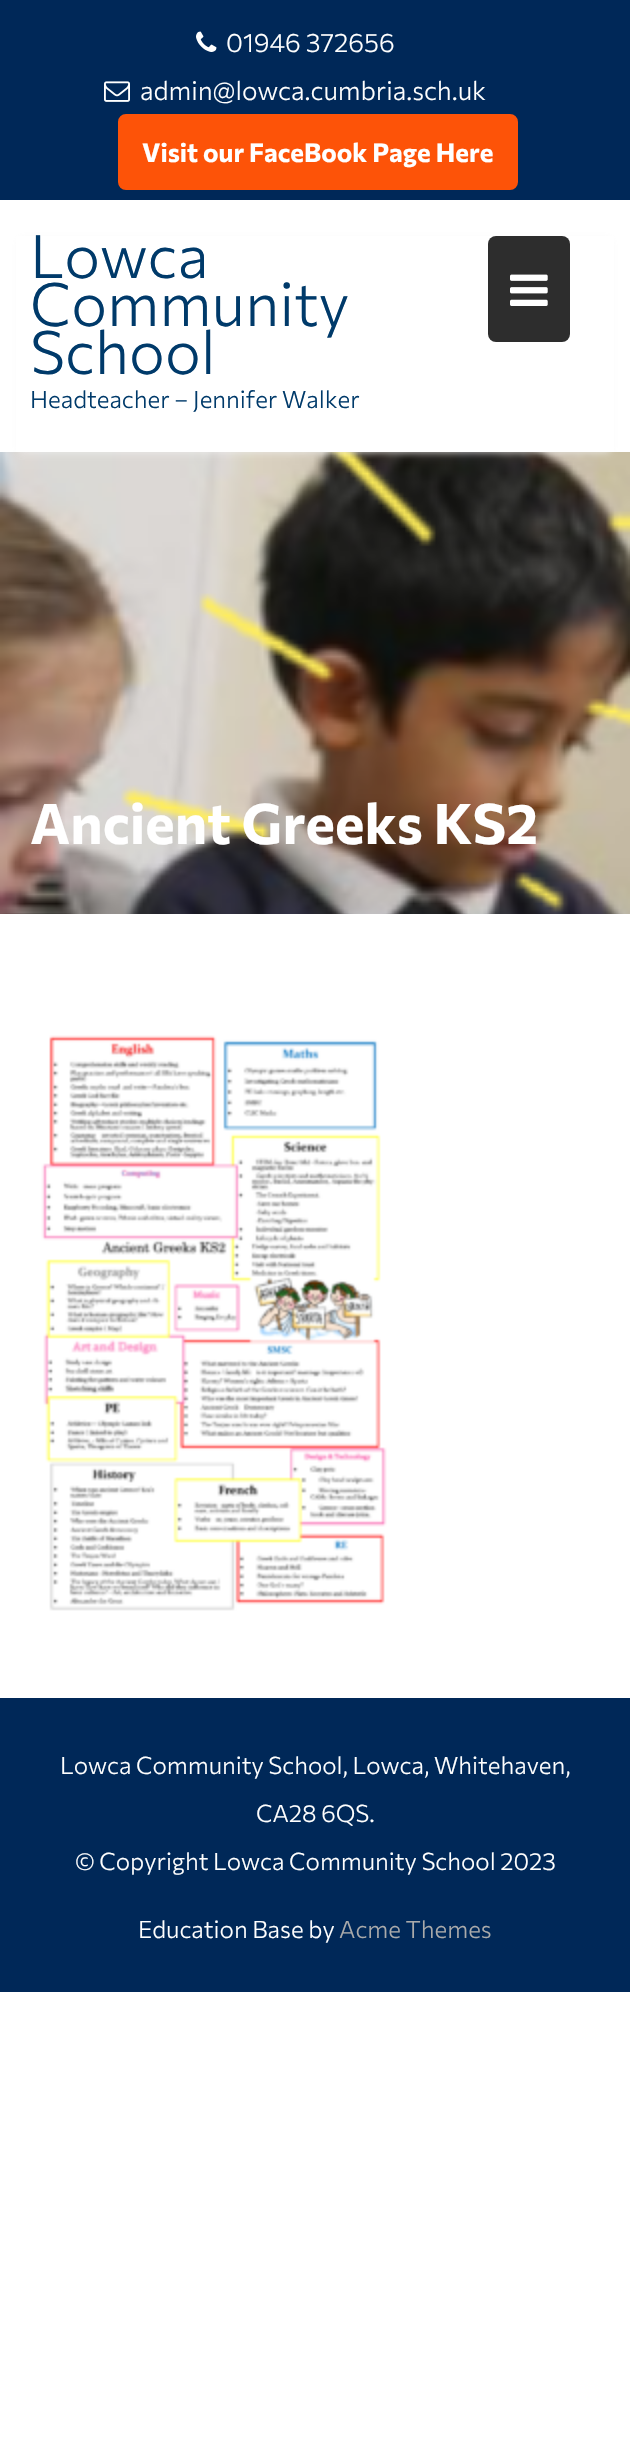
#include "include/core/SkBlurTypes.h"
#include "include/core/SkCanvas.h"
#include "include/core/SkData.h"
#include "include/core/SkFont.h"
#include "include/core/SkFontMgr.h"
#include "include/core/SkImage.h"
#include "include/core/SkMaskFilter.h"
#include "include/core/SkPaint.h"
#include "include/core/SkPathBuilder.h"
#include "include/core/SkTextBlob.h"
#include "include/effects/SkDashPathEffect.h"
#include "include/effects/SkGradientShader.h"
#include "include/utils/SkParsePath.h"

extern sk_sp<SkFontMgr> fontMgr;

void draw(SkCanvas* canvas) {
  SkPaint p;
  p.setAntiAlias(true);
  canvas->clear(SK_ColorWHITE);
  p.setColor(SkColorSetRGB(0, 40, 88));
  canvas->drawRect(SkRect::MakeLTRB(0, 0, 630, 200), p);
  canvas->drawImageRect(SkImages::DeferredFromEncodedData(SkData::MakeFromFileName("images/1.png")), SkRect::MakeLTRB(196, 31, 217, 52), SkSamplingOptions());
  canvas->drawImageRect(SkImages::DeferredFromEncodedData(SkData::MakeFromFileName("images/2.png")), SkRect::MakeLTRB(104, 81, 130, 102), SkSamplingOptions());
  p.setColor(SkColorSetRGB(253, 83, 8));
  canvas->drawRoundRect(SkRect::MakeLTRB(120, 116, 516, 188), 6, 6, p);
  p.setStyle(SkPaint::kStroke_Style);
  p.setStrokeWidth(4);
  canvas->drawRoundRect(SkRect::MakeLTRB(120, 116, 516, 188), 6, 6, p);
  canvas->drawImageRect(SkImages::DeferredFromEncodedData(SkData::MakeFromFileName("images/4.png")), SkRect::MakeLTRB(0, 452, 630, 914), SkSamplingOptions());
  p.setStyle(SkPaint::kFill_Style);
  p.setColor(SkColorSetARGB(230, 238, 238, 238));
  p.setMaskFilter(SkMaskFilter::MakeBlur(kNormal_SkBlurStyle, 4));
  canvas->drawRect(SkRect::MakeLTRB(20, 240, 610, 452), p);
  p.setMaskFilter(nullptr);
  p.setColor(SK_ColorWHITE);
  canvas->drawRect(SkRect::MakeLTRB(16, 236, 614, 452), p);
  p.setColor(SkColorSetRGB(45, 45, 45));
  canvas->drawRoundRect(SkRect::MakeLTRB(488, 236, 570, 342), 8, 8, p);
  canvas->drawImageRect(SkImages::DeferredFromEncodedData(SkData::MakeFromFileName("images/3.png")), SkRect::MakeLTRB(510, 274, 548, 306), SkSamplingOptions());
  canvas->drawImageRect(SkImages::DeferredFromEncodedData(SkData::MakeFromFileName("images/5.png")), SkRect::MakeLTRB(41, 1035, 387, 1611), SkSamplingOptions());
  p.setColor(SkColorSetRGB(0, 40, 88));
  canvas->drawRect(SkRect::MakeLTRB(0, 1698, 630, 1992), p);
  SkFont font1(fontMgr->matchFamilyStyle("Commissioner", SkFontStyle(300, SkFontStyle::kNormal_Width, SkFontStyle::kUpright_Slant)), 26);
  font1.setSubpixel(true);
  p.setColor(SK_ColorWHITE);
  canvas->drawString("01946 372656", 226, 52, font1, p);
  canvas->drawString("admin@lowca.cumbria.sch.uk", 140, 100, font1, p);
  SkFont font2(fontMgr->matchFamilyStyle("Commissioner", SkFontStyle::Bold()), 26);
  font2.setSubpixel(true);
  canvas->drawString("Visit our FaceBook Page Here", 142, 162, font2, p);
  SkFont font3(fontMgr->matchFamilyStyle("Commissioner", SkFontStyle(300, SkFontStyle::kNormal_Width, SkFontStyle::kUpright_Slant)), 60);
  font3.setSubpixel(true);
  p.setColor(SkColorSetRGB(0, 58, 106));
  canvas->drawString("Lowca", 30, 278, font3, p);
  canvas->drawString("Community", 30, 326, font3, p);
  canvas->drawString("School", 30, 374, font3, p);
  SkFont font4(fontMgr->matchFamilyStyle("Commissioner", SkFontStyle(300, SkFontStyle::kNormal_Width, SkFontStyle::kUpright_Slant)), 24);
  font4.setSubpixel(true);
  canvas->drawString("Headteacher – Jennifer Walker", 30, 408, font4, p);
  SkFont font5(fontMgr->matchFamilyStyle("Commissioner", SkFontStyle::Bold()), 56);
  font5.setSubpixel(true);
  p.setColor(SK_ColorWHITE);
  canvas->drawString("Ancient Greeks KS2", 30, 844, font5, p);
  canvas->drawString("Lowca Community School, Lowca, Whitehaven,", 60, 1774, font4, p);
  canvas->drawString("CA28 6QS.", 256, 1822, font4, p);
  canvas->drawString("© Copyright Lowca Community School 2023", 75, 1870, font4, p);
  canvas->drawString("Education Base by", 138, 1938, font4, p);
  p.setColor(SkColorSetRGB(170, 170, 170));
  canvas->drawString("Acme Themes", 339, 1938, font4, p);
}
